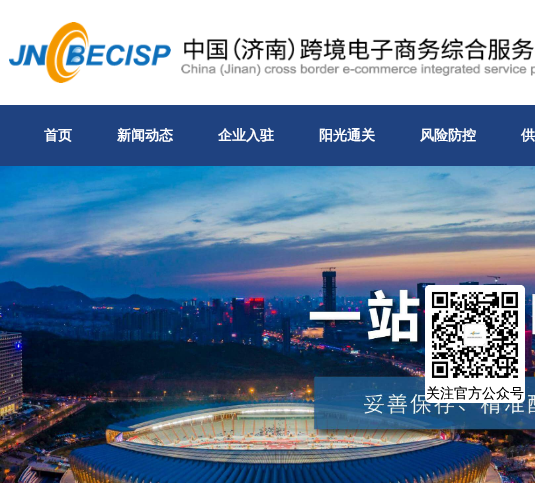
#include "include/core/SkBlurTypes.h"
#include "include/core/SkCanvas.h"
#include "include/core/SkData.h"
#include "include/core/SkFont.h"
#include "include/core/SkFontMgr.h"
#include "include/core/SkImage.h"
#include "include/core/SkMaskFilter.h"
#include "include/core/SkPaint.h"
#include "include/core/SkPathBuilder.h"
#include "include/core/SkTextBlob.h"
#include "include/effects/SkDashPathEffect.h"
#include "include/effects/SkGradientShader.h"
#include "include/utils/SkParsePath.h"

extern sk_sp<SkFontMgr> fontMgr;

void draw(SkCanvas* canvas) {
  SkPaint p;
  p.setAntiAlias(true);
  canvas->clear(SK_ColorWHITE);
  canvas->drawImageRect(SkImages::DeferredFromEncodedData(SkData::MakeFromFileName("images/1.png")), SkRect::MakeLTRB(9, 22, 535, 83), SkSamplingOptions());
  p.setColor(SkColorSetRGB(31, 66, 128));
  canvas->drawRect(SkRect::MakeLTRB(0, 105, 535, 166), p);
  canvas->drawImageRect(SkImages::DeferredFromEncodedData(SkData::MakeFromFileName("images/2.png")), SkRect::MakeLTRB(0, 166, 535, 483), SkSamplingOptions());
  p.setColor(SK_ColorWHITE);
  canvas->drawRoundRect(SkRect::MakeLTRB(425, 285, 525, 403), 5, 5, p);
  canvas->drawImageRect(SkImages::DeferredFromEncodedData(SkData::MakeFromFileName("images/3.png")), SkRect::MakeLTRB(425, 285, 525, 378), SkSamplingOptions());
  SkFont font1(fontMgr->matchFamilyStyle("WenQuanYi Zen Hei", SkFontStyle::Bold()), 14);
  font1.setSubpixel(true);
  canvas->drawString("首页", 44, 140, font1, p);
  canvas->drawString("新闻动态", 117, 140, font1, p);
  canvas->drawString("企业入驻", 218, 140, font1, p);
  canvas->drawString("阳光通关", 319, 140, font1, p);
  canvas->drawString("风险防控", 420, 140, font1, p);
  canvas->drawString("供", 521, 140, font1, p);
  SkFont font2(fontMgr->matchFamilyStyle("WenQuanYi Zen Hei", SkFontStyle(500, SkFontStyle::kNormal_Width, SkFontStyle::kUpright_Slant)), 14);
  font2.setSubpixel(true);
  p.setColor(SK_ColorBLACK);
  canvas->drawString("关注官方公众号", 426, 398, font2, p);
}
